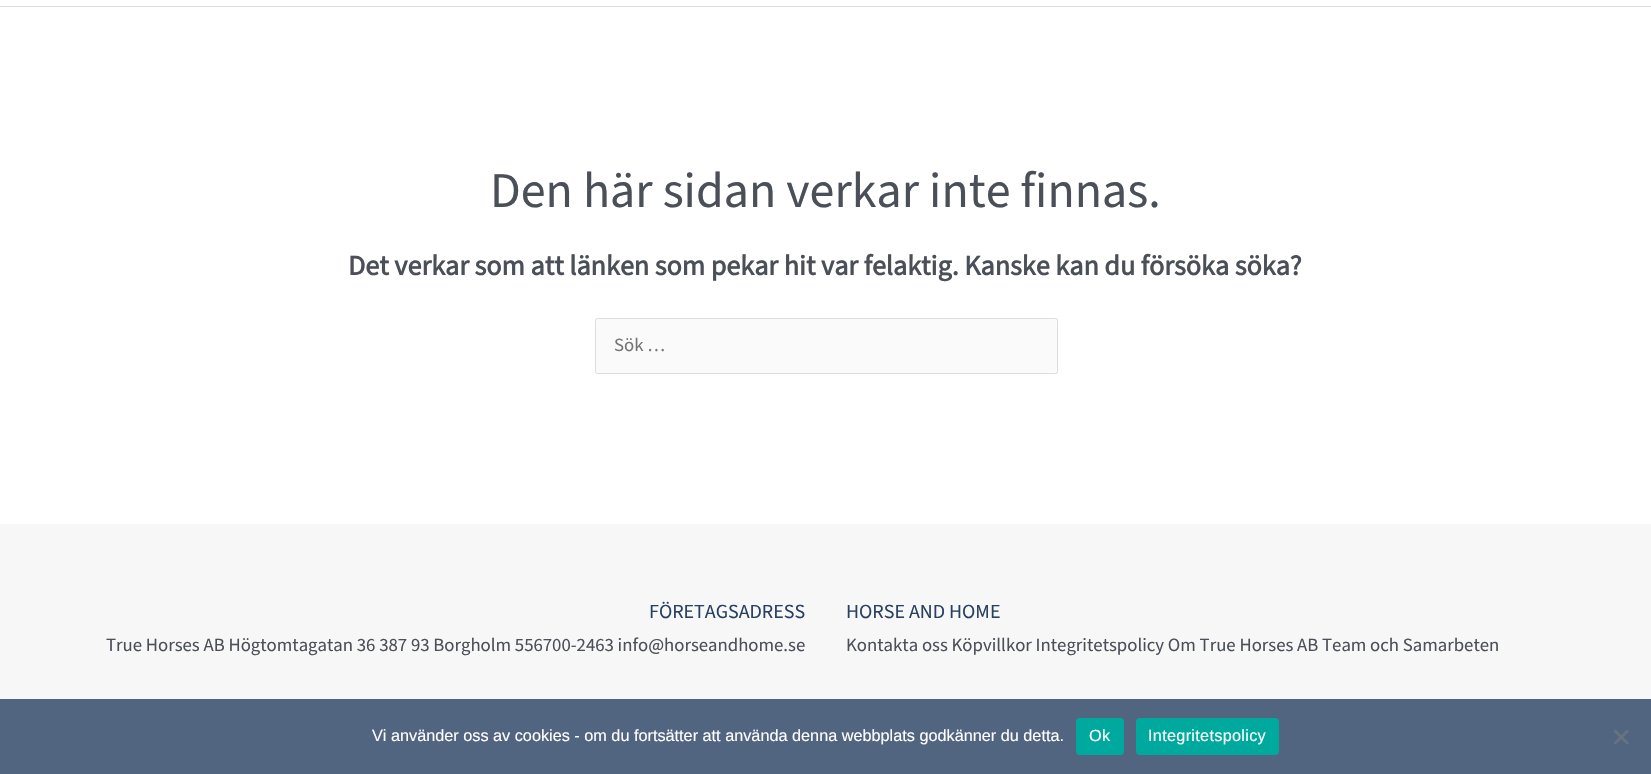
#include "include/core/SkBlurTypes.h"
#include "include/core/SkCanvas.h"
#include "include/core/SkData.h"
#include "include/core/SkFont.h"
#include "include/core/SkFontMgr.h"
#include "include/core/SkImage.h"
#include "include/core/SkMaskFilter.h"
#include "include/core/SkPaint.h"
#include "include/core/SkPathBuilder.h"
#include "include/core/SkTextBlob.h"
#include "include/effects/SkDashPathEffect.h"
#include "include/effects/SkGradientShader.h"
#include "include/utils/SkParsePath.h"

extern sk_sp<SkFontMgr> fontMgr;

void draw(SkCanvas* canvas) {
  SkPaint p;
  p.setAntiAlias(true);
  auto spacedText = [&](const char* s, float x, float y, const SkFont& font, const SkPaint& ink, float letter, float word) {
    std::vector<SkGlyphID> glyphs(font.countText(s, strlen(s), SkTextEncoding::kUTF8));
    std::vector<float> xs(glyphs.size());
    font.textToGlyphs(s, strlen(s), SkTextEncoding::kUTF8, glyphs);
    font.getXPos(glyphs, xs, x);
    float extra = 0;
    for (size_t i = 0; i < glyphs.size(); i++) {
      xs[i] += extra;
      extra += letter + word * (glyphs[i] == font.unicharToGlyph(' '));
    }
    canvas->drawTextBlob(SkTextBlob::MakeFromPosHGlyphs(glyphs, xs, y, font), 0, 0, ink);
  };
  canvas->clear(SK_ColorWHITE);
  p.setColor(SkColorSetRGB(221, 221, 221));
  canvas->drawRect(SkRect::MakeLTRB(0, 6, 1651, 7), p);
  p.setColor(SkColorSetRGB(250, 250, 250));
  canvas->drawRoundRect(SkRect::MakeLTRB(595.5f, 318.5f, 1057.5f, 373.5f), 2, 2, p);
  p.setStyle(SkPaint::kStroke_Style);
  p.setStrokeWidth(1);
  p.setColor(SkColorSetRGB(221, 221, 221));
  canvas->drawRoundRect(SkRect::MakeLTRB(595.5f, 318.5f, 1057.5f, 373.5f), 2, 2, p);
  p.setStyle(SkPaint::kFill_Style);
  p.setColor(SkColorSetRGB(247, 247, 247));
  canvas->drawRect(SkRect::MakeLTRB(0, 524, 1651, 699), p);
  p.setColor(SkColorSetRGB(81, 101, 128));
  canvas->drawRect(SkRect::MakeLTRB(0, 699, 1651, 748), p);
  canvas->drawRect(SkRect::MakeLTRB(0, 749, 1651, 774), p);
  p.setColor(SkColorSetRGB(80, 101, 128));
  canvas->drawRect(SkRect::MakeLTRB(0, 748, 1651, 749), p);
  p.setColor(SkColorSetRGB(0, 169, 157));
  canvas->drawRoundRect(SkRect::MakeLTRB(1076, 718, 1124, 755), 4, 4, p);
  canvas->drawRoundRect(SkRect::MakeLTRB(1136, 718, 1279, 755), 4, 4, p);
  p.setColor(SkColorSetRGB(104, 115, 128));
  canvas->drawPath(SkPathBuilder().moveTo(1627, 729.5f).lineTo(1629, 731.5f).lineTo(1615.5f, 744.5f).lineTo(1613.5f, 743).close().detach(), p);
  canvas->drawPath(SkPathBuilder().moveTo(1613.5f, 731.5f).lineTo(1615.5f, 729.5f).lineTo(1629, 743).lineTo(1627, 744.5f).close().detach(), p);
  SkFont font1(fontMgr->matchFamilyStyle("Source Sans 3", SkFontStyle::Normal()), 50);
  font1.setSubpixel(true);
  p.setColor(SkColorSetRGB(75, 79, 88));
  canvas->drawString("Den här sidan verkar inte finnas.", 490, 207, font1, p);
  SkFont font2(fontMgr->matchFamilyStyle("Source Sans 3", SkFontStyle::Bold()), 28.1f);
  font2.setSubpixel(true);
  canvas->drawString("Det verkar som att länken som pekar hit var felaktig. Kanske kan du försöka söka?", 348, 275, font2, p);
  SkFont font3(fontMgr->matchFamilyStyle("Source Sans 3", SkFontStyle::Normal()), 18.75f);
  font3.setSubpixel(true);
  p.setColor(SkColorSetRGB(117, 117, 117));
  canvas->drawString("Sök …", 614, 351, font3, p);
  SkFont font4(fontMgr->matchFamilyStyle("Source Sans 3", SkFontStyle::Normal()), 20);
  font4.setSubpixel(true);
  p.setColor(SkColorSetRGB(39, 65, 98));
  canvas->drawString("FÖRETAGSADRESS", 649, 618, font4, p);
  p.setColor(SkColorSetRGB(75, 79, 88));
  canvas->drawString("True Horses AB Högtomtagatan 36 387 93 Borgholm 556700-2463 info@horseandhome.se", 106, 651, font3, p);
  p.setColor(SkColorSetRGB(39, 65, 98));
  canvas->drawString("HORSE AND HOME", 846, 618, font4, p);
  p.setColor(SkColorSetRGB(75, 79, 88));
  canvas->drawString("Kontakta oss Köpvillkor Integritetspolicy Om True Horses AB Team och Samarbeten", 846, 651, font3, p);
  SkFont font5(fontMgr->matchFamilyStyle("Liberation Sans", SkFontStyle::Normal()), 16.25f);
  font5.setSubpixel(true);
  p.setColor(SK_ColorWHITE);
  canvas->drawString("Vi använder oss av cookies - om du fortsätter att använda denna webbplats godkänner du detta.", 372, 741, font5, p);
  spacedText("Ok", 1089, 741, font5, p, 0.3f, 0);
  spacedText("Integritetspolicy", 1148, 741, font5, p, 0.3f, 0);
}
